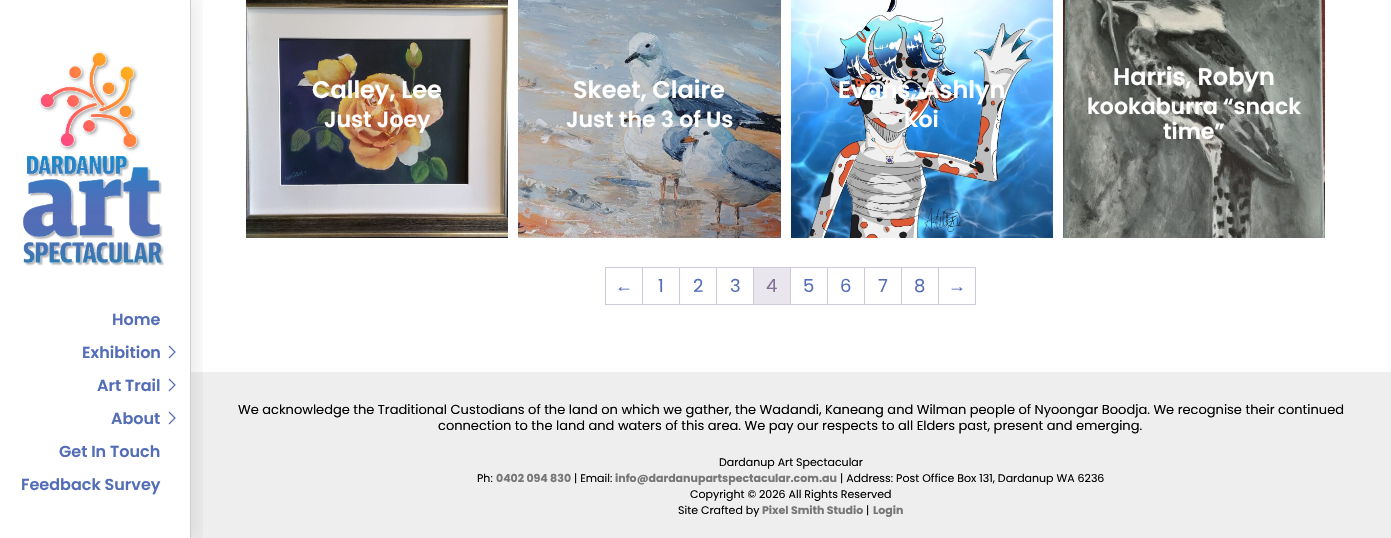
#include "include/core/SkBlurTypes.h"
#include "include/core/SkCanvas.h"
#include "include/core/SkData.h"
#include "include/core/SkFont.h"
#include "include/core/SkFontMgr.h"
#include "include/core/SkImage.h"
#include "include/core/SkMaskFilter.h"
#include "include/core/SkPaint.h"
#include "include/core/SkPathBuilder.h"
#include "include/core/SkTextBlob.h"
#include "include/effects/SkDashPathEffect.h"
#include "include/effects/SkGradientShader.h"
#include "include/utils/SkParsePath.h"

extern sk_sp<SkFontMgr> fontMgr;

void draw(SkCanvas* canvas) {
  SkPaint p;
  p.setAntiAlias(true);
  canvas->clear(SK_ColorWHITE);
  p.setColor(SkColorSetRGB(238, 238, 238));
  canvas->drawRect(SkRect::MakeLTRB(191, 372, 1391, 538), p);
  canvas->save();
  canvas->clipRect(SkRect::MakeLTRB(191, 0, 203, 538));
  p.setColor(SkColorSetARGB(18, 0, 0, 0));
  p.setMaskFilter(SkMaskFilter::MakeBlur(kNormal_SkBlurStyle, 7.5f));
  canvas->drawRect(SkRect::MakeLTRB(0, -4, 199, 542), p);
  p.setMaskFilter(nullptr);
  canvas->restore();
  p.setColor(SkColorSetRGB(206, 206, 206));
  canvas->drawRect(SkRect::MakeLTRB(190, 0, 191, 538), p);
  canvas->drawImageRect(SkImages::DeferredFromEncodedData(SkData::MakeFromFileName("images/1.png")), SkRect::MakeLTRB(23, 51, 164, 266), SkSamplingOptions());
  p.setStyle(SkPaint::kStroke_Style);
  p.setStrokeWidth(1.2f);
  p.setColor(SkColorSetRGB(83, 109, 183));
  canvas->drawPath(SkPathBuilder().moveTo(169, 346).lineTo(175, 352).lineTo(169, 358).moveTo(169, 379).lineTo(175, 385).lineTo(169, 391).detach(), p);
  canvas->drawPath(SkPathBuilder().moveTo(169, 412).lineTo(175, 418).lineTo(169, 424).detach(), p);
  canvas->drawImageRect(SkImages::DeferredFromEncodedData(SkData::MakeFromFileName("images/2.png")), SkRect::MakeLTRB(246, 0, 508, 238), SkSamplingOptions());
  canvas->drawImageRect(SkImages::DeferredFromEncodedData(SkData::MakeFromFileName("images/3.png")), SkRect::MakeLTRB(518, 0, 781, 238), SkSamplingOptions());
  canvas->drawImageRect(SkImages::DeferredFromEncodedData(SkData::MakeFromFileName("images/4.png")), SkRect::MakeLTRB(791, 0, 1053, 238), SkSamplingOptions());
  canvas->drawImageRect(SkImages::DeferredFromEncodedData(SkData::MakeFromFileName("images/5.png")), SkRect::MakeLTRB(1063, 0, 1325, 238), SkSamplingOptions());
  p.setStyle(SkPaint::kFill_Style);
  p.setColor(SkColorSetRGB(207, 200, 216));
  canvas->drawRect(SkRect::MakeLTRB(605, 267, 976, 268), p);
  canvas->drawRect(SkRect::MakeLTRB(605, 304, 976, 305), p);
  canvas->drawRect(SkRect::MakeLTRB(605, 267, 606, 305), p);
  canvas->drawRect(SkRect::MakeLTRB(642, 268, 643, 304), p);
  canvas->drawRect(SkRect::MakeLTRB(679, 268, 680, 304), p);
  canvas->drawRect(SkRect::MakeLTRB(716, 268, 717, 304), p);
  canvas->drawRect(SkRect::MakeLTRB(753, 268, 754, 304), p);
  canvas->drawRect(SkRect::MakeLTRB(790, 268, 791, 304), p);
  p.setColor(SkColorSetRGB(233, 230, 237));
  canvas->drawRect(SkRect::MakeLTRB(754, 268, 790, 304), p);
  p.setColor(SkColorSetRGB(207, 200, 216));
  canvas->drawRect(SkRect::MakeLTRB(827, 268, 828, 304), p);
  canvas->drawRect(SkRect::MakeLTRB(864, 268, 865, 304), p);
  canvas->drawRect(SkRect::MakeLTRB(901, 268, 902, 304), p);
  canvas->drawRect(SkRect::MakeLTRB(938, 268, 939, 304), p);
  canvas->drawRect(SkRect::MakeLTRB(975, 268, 976, 304), p);
  SkFont font1(fontMgr->matchFamilyStyle("Poppins", SkFontStyle(600, SkFontStyle::kNormal_Width, SkFontStyle::kUpright_Slant)), 16);
  font1.setSubpixel(true);
  p.setColor(SkColorSetRGB(83, 109, 183));
  canvas->drawString("Home", 112, 325, font1, p);
  canvas->drawString("Exhibition", 82, 358, font1, p);
  canvas->drawString("Art Trail", 97, 391, font1, p);
  canvas->drawString("About", 111, 424, font1, p);
  canvas->drawString("Get In Touch", 59, 457, font1, p);
  canvas->drawString("Feedback Survey", 21, 490, font1, p);
  SkFont font2(fontMgr->matchFamilyStyle("Poppins", SkFontStyle(600, SkFontStyle::kNormal_Width, SkFontStyle::kUpright_Slant)), 24);
  font2.setSubpixel(true);
  p.setColor(SK_ColorWHITE);
  canvas->drawString("Calley, Lee", 312, 98, font2, p);
  SkFont font3(fontMgr->matchFamilyStyle("Poppins", SkFontStyle(600, SkFontStyle::kNormal_Width, SkFontStyle::kUpright_Slant)), 22);
  font3.setSubpixel(true);
  canvas->drawString("Just Joey", 324, 127, font3, p);
  canvas->drawString("Skeet, Claire", 573, 98, font2, p);
  canvas->drawString("Just the 3 of Us", 566, 127, font3, p);
  canvas->drawString("Evans, Ashlyn", 838, 98, font2, p);
  canvas->drawString("Koi", 904, 127, font3, p);
  canvas->drawString("Harris, Robyn", 1113, 85, font2, p);
  canvas->drawString("kookaburra “snack", 1087, 114, font3, p);
  canvas->drawString("time”", 1163, 139, font3, p);
  SkFont font4(fontMgr->matchFamilyStyle("Liberation Sans", SkFontStyle::Normal()), 18);
  font4.setSubpixel(true);
  p.setColor(SkColorSetRGB(83, 109, 183));
  canvas->drawString("←", 615, 292, font4, p);
  SkFont font5(fontMgr->matchFamilyStyle("Poppins", SkFontStyle::Normal()), 18);
  font5.setSubpixel(true);
  canvas->drawString("1", 658, 292, font5, p);
  canvas->drawString("2", 693, 292, font5, p);
  canvas->drawString("3", 730, 292, font5, p);
  p.setColor(SkColorSetRGB(129, 111, 152));
  canvas->drawString("4", 766, 292, font5, p);
  p.setColor(SkColorSetRGB(83, 109, 183));
  canvas->drawString("5", 803, 292, font5, p);
  canvas->drawString("6", 840, 292, font5, p);
  canvas->drawString("7", 878, 292, font5, p);
  canvas->drawString("8", 914, 292, font5, p);
  canvas->drawString("→", 948, 292, font4, p);
  SkFont font6(fontMgr->matchFamilyStyle("Poppins", SkFontStyle::Normal()), 13);
  font6.setSubpixel(true);
  p.setColor(SK_ColorBLACK);
  canvas->drawString("We acknowledge the Traditional Custodians of the land on which we gather, the Wadandi, Kaneang and Wilman people of Nyoongar Boodja. We recognise their continued", 238, 414, font6, p);
  canvas->drawString("connection to the land and waters of this area. We pay our respects to all Elders past, present and emerging.", 438, 430, font6, p);
  SkFont font7(fontMgr->matchFamilyStyle("Poppins", SkFontStyle::Normal()), 11);
  font7.setSubpixel(true);
  canvas->drawString("Dardanup Art Spectacular", 719, 466, font7, p);
  canvas->drawString("Ph:", 477, 482, font7, p);
  SkFont font8(fontMgr->matchFamilyStyle("Poppins", SkFontStyle::Bold()), 11);
  font8.setSubpixel(true);
  p.setColor(SkColorSetRGB(119, 119, 119));
  canvas->drawString("0402 094 830", 496, 482, font8, p);
  p.setColor(SK_ColorBLACK);
  canvas->drawString("| Email:", 574, 482, font7, p);
  p.setColor(SkColorSetRGB(119, 119, 119));
  canvas->drawString("info@dardanupartspectacular.com.au", 615, 482, font8, p);
  p.setColor(SK_ColorBLACK);
  canvas->drawString("| Address: Post Office Box 131, Dardanup WA 6236", 840, 482, font7, p);
  canvas->drawString("Copyright © 2026 All Rights Reserved", 690, 498, font7, p);
  canvas->drawString("Site Crafted by", 678, 514, font7, p);
  p.setColor(SkColorSetRGB(119, 119, 119));
  canvas->drawString("Pixel Smith Studio", 762, 514, font8, p);
  p.setColor(SK_ColorBLACK);
  canvas->drawString("|", 866, 514, font7, p);
  p.setColor(SkColorSetRGB(119, 119, 119));
  canvas->drawString("Login", 873, 514, font8, p);
}
